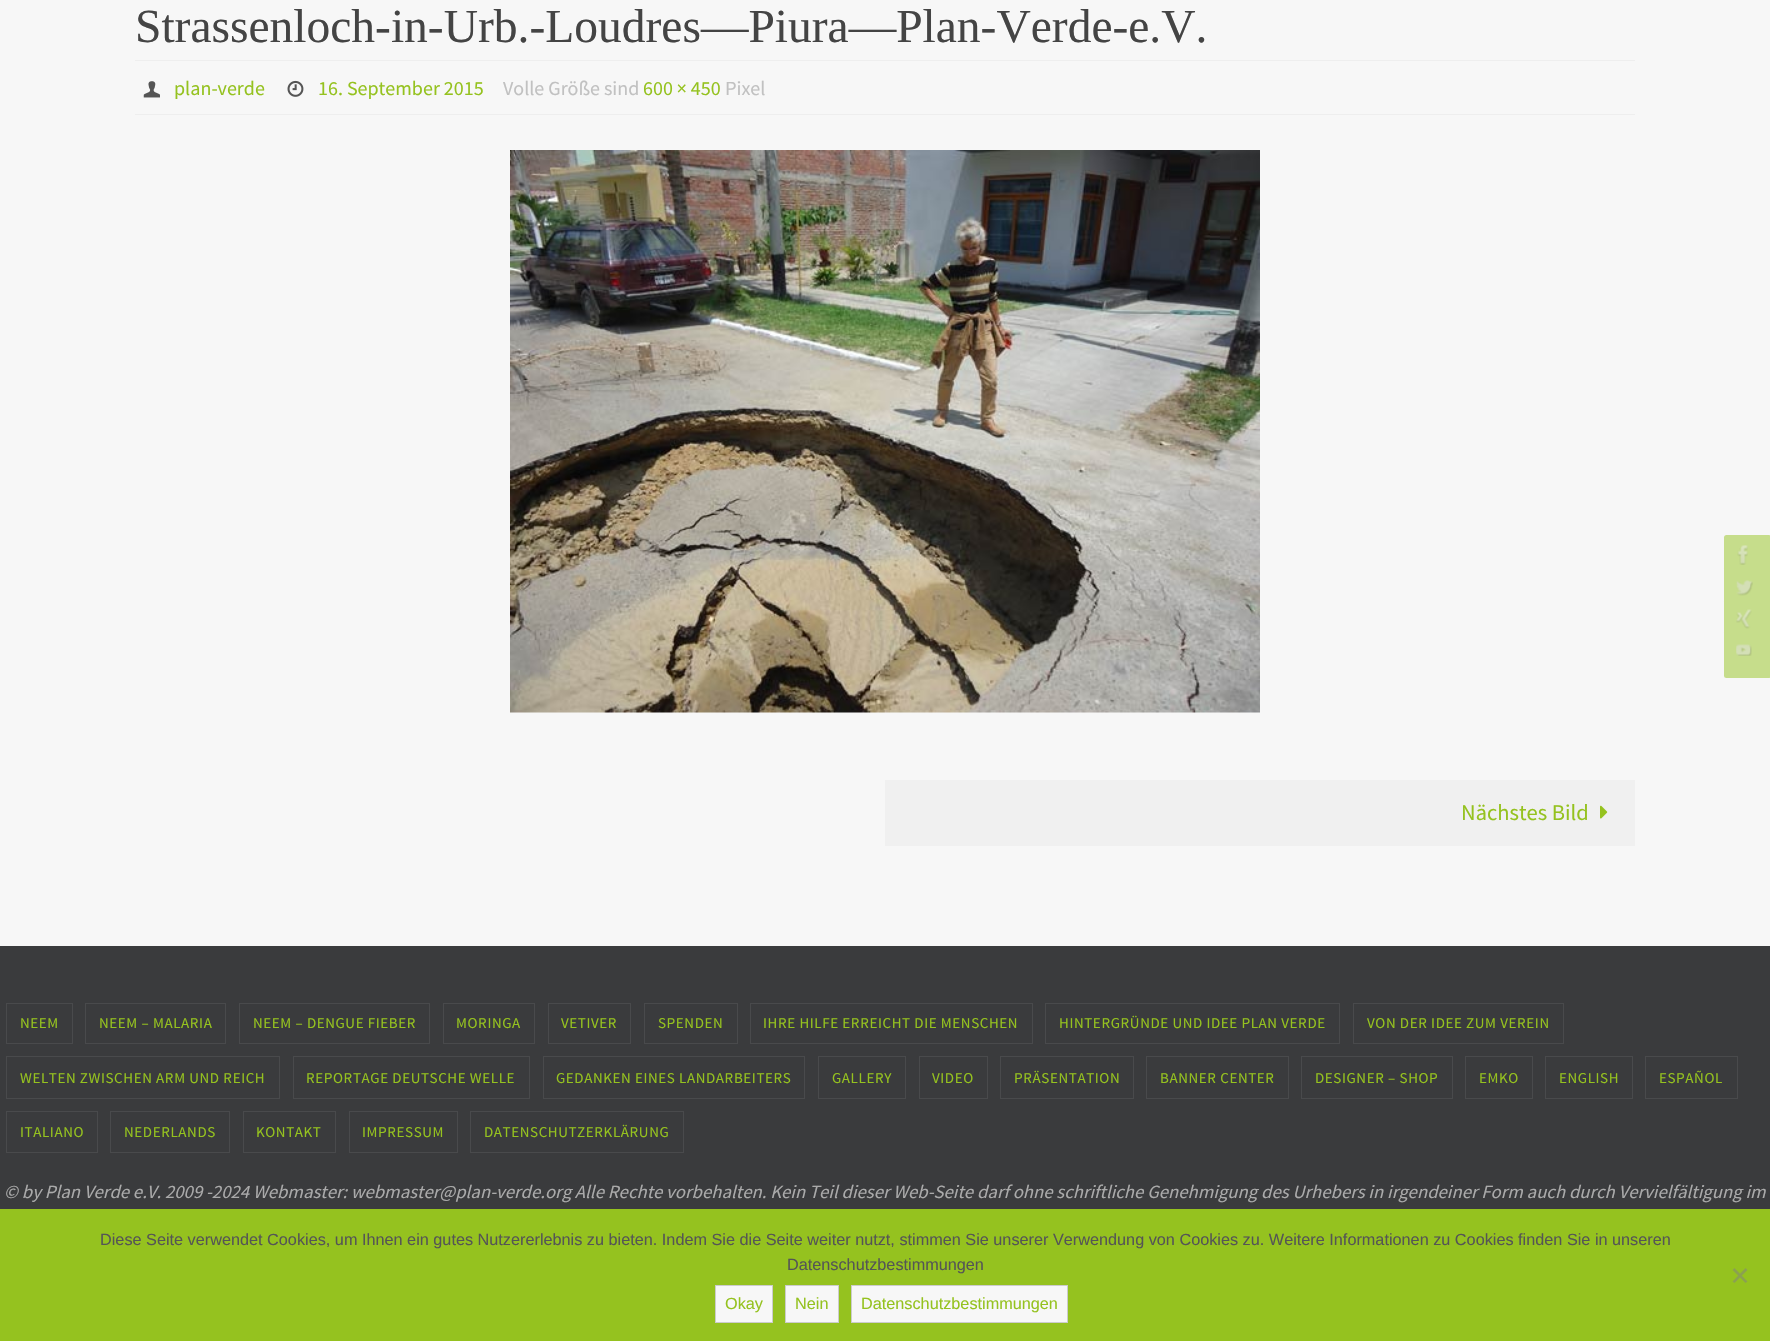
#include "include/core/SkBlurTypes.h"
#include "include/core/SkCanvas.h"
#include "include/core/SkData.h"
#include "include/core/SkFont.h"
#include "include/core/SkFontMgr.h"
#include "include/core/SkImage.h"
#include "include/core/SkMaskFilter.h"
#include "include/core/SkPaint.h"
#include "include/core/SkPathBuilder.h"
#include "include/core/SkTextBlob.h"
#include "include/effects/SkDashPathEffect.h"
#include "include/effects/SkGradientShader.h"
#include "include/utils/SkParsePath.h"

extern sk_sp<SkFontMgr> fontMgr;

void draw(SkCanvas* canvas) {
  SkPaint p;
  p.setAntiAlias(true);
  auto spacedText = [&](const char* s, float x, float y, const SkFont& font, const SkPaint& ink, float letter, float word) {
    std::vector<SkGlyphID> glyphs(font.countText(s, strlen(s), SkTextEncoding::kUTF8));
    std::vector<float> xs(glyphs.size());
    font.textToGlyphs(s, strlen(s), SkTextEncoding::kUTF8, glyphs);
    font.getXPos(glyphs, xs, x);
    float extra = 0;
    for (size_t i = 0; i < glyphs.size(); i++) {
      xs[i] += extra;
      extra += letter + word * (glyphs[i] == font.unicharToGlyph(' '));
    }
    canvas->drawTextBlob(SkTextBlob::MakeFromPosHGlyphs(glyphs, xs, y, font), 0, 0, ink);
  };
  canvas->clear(SkColorSetRGB(247, 247, 247));
  p.setColor(SkColorSetRGB(238, 238, 238));
  canvas->drawRect(SkRect::MakeLTRB(135, 60, 1635, 61), p);
  canvas->drawRect(SkRect::MakeLTRB(135, 114, 1635, 115), p);
  canvas->drawImageRect(SkImages::DeferredFromEncodedData(SkData::MakeFromFileName("images/1.png")), SkRect::MakeLTRB(143, 81, 160, 98), SkSamplingOptions());
  canvas->drawImageRect(SkImages::DeferredFromEncodedData(SkData::MakeFromFileName("images/2.png")), SkRect::MakeLTRB(287, 80, 304, 97), SkSamplingOptions());
  canvas->drawImageRect(SkImages::DeferredFromEncodedData(SkData::MakeFromFileName("images/3.png")), SkRect::MakeLTRB(510, 150, 1260, 713), SkSamplingOptions());
  p.setColor(SkColorSetRGB(240, 240, 240));
  canvas->drawRect(SkRect::MakeLTRB(885, 780, 1635, 846), p);
  canvas->drawImageRect(SkImages::DeferredFromEncodedData(SkData::MakeFromFileName("images/4.png")), SkRect::MakeLTRB(1600, 805, 1608, 819), SkSamplingOptions());
  p.setColor(SkColorSetRGB(58, 59, 61));
  canvas->drawRect(SkRect::MakeLTRB(0, 946, 1770, 1209), p);
  p.setStyle(SkPaint::kStroke_Style);
  p.setStrokeWidth(1);
  p.setColor(SkColorSetRGB(73, 74, 76));
  canvas->drawRect(SkRect::MakeLTRB(6.5f, 1003.5f, 72.5f, 1043.5f), p);
  canvas->drawRect(SkRect::MakeLTRB(85.5f, 1003.5f, 225.5f, 1043.5f), p);
  canvas->drawRect(SkRect::MakeLTRB(239.5f, 1003.5f, 429.5f, 1043.5f), p);
  canvas->drawRect(SkRect::MakeLTRB(443.5f, 1003.5f, 534.5f, 1043.5f), p);
  canvas->drawRect(SkRect::MakeLTRB(548.5f, 1003.5f, 630.5f, 1043.5f), p);
  canvas->drawRect(SkRect::MakeLTRB(644.5f, 1003.5f, 737.5f, 1043.5f), p);
  canvas->drawRect(SkRect::MakeLTRB(750.5f, 1003.5f, 1032.5f, 1043.5f), p);
  canvas->drawRect(SkRect::MakeLTRB(1045.5f, 1003.5f, 1339.5f, 1043.5f), p);
  canvas->drawRect(SkRect::MakeLTRB(1353.5f, 1003.5f, 1563.5f, 1043.5f), p);
  canvas->drawRect(SkRect::MakeLTRB(6.5f, 1056.5f, 279.5f, 1098.5f), p);
  canvas->drawRect(SkRect::MakeLTRB(293.5f, 1056.5f, 529.5f, 1098.5f), p);
  canvas->drawRect(SkRect::MakeLTRB(543.5f, 1056.5f, 804.5f, 1098.5f), p);
  canvas->drawRect(SkRect::MakeLTRB(818.5f, 1056.5f, 905.5f, 1098.5f), p);
  canvas->drawRect(SkRect::MakeLTRB(919.5f, 1056.5f, 987.5f, 1098.5f), p);
  canvas->drawRect(SkRect::MakeLTRB(1000.5f, 1056.5f, 1133.5f, 1098.5f), p);
  canvas->drawRect(SkRect::MakeLTRB(1146.5f, 1056.5f, 1288.5f, 1098.5f), p);
  canvas->drawRect(SkRect::MakeLTRB(1301.5f, 1056.5f, 1452.5f, 1098.5f), p);
  canvas->drawRect(SkRect::MakeLTRB(1465.5f, 1056.5f, 1532.5f, 1098.5f), p);
  canvas->drawRect(SkRect::MakeLTRB(1545.5f, 1056.5f, 1632.5f, 1098.5f), p);
  canvas->drawRect(SkRect::MakeLTRB(1645.5f, 1056.5f, 1737.5f, 1098.5f), p);
  canvas->drawRect(SkRect::MakeLTRB(6.5f, 1111.5f, 97.5f, 1152.5f), p);
  canvas->drawRect(SkRect::MakeLTRB(110.5f, 1111.5f, 229.5f, 1152.5f), p);
  canvas->drawRect(SkRect::MakeLTRB(243.5f, 1111.5f, 335.5f, 1152.5f), p);
  canvas->drawRect(SkRect::MakeLTRB(349.5f, 1111.5f, 457.5f, 1152.5f), p);
  canvas->drawRect(SkRect::MakeLTRB(470.5f, 1111.5f, 683.5f, 1152.5f), p);
  p.setStyle(SkPaint::kFill_Style);
  p.setColor(SkColorSetRGB(198, 221, 139));
  canvas->drawRoundRect(SkRect::MakeLTRB(1724, 535, 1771, 583), 2.5f, 2.5f, p);
  canvas->drawImageRect(SkImages::DeferredFromEncodedData(SkData::MakeFromFileName("images/5.png")), SkRect::MakeLTRB(1737, 545, 1748, 565), SkSamplingOptions());
  canvas->drawRoundRect(SkRect::MakeLTRB(1724, 566, 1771, 614), 2.5f, 2.5f, p);
  canvas->drawImageRect(SkImages::DeferredFromEncodedData(SkData::MakeFromFileName("images/6.png")), SkRect::MakeLTRB(1736, 580, 1753, 596), SkSamplingOptions());
  canvas->drawRoundRect(SkRect::MakeLTRB(1724, 599, 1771, 646), 2.5f, 2.5f, p);
  canvas->drawImageRect(SkImages::DeferredFromEncodedData(SkData::MakeFromFileName("images/7.png")), SkRect::MakeLTRB(1736, 609, 1752, 629), SkSamplingOptions());
  canvas->drawRoundRect(SkRect::MakeLTRB(1724, 630, 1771, 678), 2.5f, 2.5f, p);
  canvas->drawImageRect(SkImages::DeferredFromEncodedData(SkData::MakeFromFileName("images/8.png")), SkRect::MakeLTRB(1736, 644, 1752, 656), SkSamplingOptions());
  p.setColor(SkColorSetRGB(149, 194, 31));
  canvas->drawRect(SkRect::MakeLTRB(0, 1209, 1770, 1341), p);
  p.setColor(SkColorSetRGB(139, 161, 80));
  canvas->drawPath(SkPathBuilder().moveTo(1745.5f, 1268).lineTo(1747.5f, 1270).lineTo(1734.5f, 1283).lineTo(1732.5f, 1281.5f).close().detach(), p);
  canvas->drawPath(SkPathBuilder().moveTo(1732.5f, 1270).lineTo(1734.5f, 1268).lineTo(1747.5f, 1281.5f).lineTo(1745.5f, 1283).close().detach(), p);
  p.setColor(SkColorSetRGB(247, 247, 247));
  canvas->drawRect(SkRect::MakeLTRB(715.5f, 1285.5f, 772.5f, 1322.5f), p);
  p.setStyle(SkPaint::kStroke_Style);
  p.setColor(SkColorSetRGB(204, 204, 204));
  canvas->drawRect(SkRect::MakeLTRB(715.5f, 1285.5f, 772.5f, 1322.5f), p);
  p.setStyle(SkPaint::kFill_Style);
  p.setColor(SkColorSetRGB(247, 247, 247));
  canvas->drawRect(SkRect::MakeLTRB(785.5f, 1285.5f, 838.5f, 1322.5f), p);
  p.setStyle(SkPaint::kStroke_Style);
  p.setColor(SkColorSetRGB(204, 204, 204));
  canvas->drawRect(SkRect::MakeLTRB(785.5f, 1285.5f, 838.5f, 1322.5f), p);
  p.setStyle(SkPaint::kFill_Style);
  p.setColor(SkColorSetRGB(247, 247, 247));
  canvas->drawRect(SkRect::MakeLTRB(851.5f, 1285.5f, 1067.5f, 1322.5f), p);
  p.setStyle(SkPaint::kStroke_Style);
  p.setColor(SkColorSetRGB(204, 204, 204));
  canvas->drawRect(SkRect::MakeLTRB(851.5f, 1285.5f, 1067.5f, 1322.5f), p);
  SkFont font1(fontMgr->matchFamilyStyle("Liberation Serif", SkFontStyle::Normal()), 47.5f);
  font1.setSubpixel(true);
  p.setStyle(SkPaint::kFill_Style);
  p.setColor(SkColorSetRGB(68, 68, 68));
  canvas->drawString("Strassenloch-in-Urb.-Loudres—Piura—Plan-Verde-e.V.", 135, 42, font1, p);
  SkFont font2(fontMgr->matchFamilyStyle("Source Sans Pro", SkFontStyle::Normal()), 20);
  font2.setSubpixel(true);
  p.setColor(SkColorSetRGB(149, 194, 31));
  canvas->drawString("plan-verde", 174, 95, font2, p);
  canvas->drawString("16. September 2015", 318, 95, font2, p);
  p.setColor(SkColorSetRGB(193, 193, 193));
  canvas->drawString("Volle Größe sind", 503, 95, font2, p);
  p.setColor(SkColorSetRGB(149, 194, 31));
  canvas->drawString("600 × 450", 643, 95, font2, p);
  p.setColor(SkColorSetRGB(193, 193, 193));
  canvas->drawString("Pixel", 725, 95, font2, p);
  SkFont font3(fontMgr->matchFamilyStyle("Source Sans Pro", SkFontStyle::Normal()), 22.5f);
  font3.setSubpixel(true);
  p.setColor(SkColorSetRGB(149, 194, 31));
  canvas->drawString("Nächstes Bild", 1461, 820, font3, p);
  SkFont font4(fontMgr->matchFamilyStyle("Source Sans Pro", SkFontStyle::Normal()), 15);
  font4.setSubpixel(true);
  spacedText("NEEM", 20, 1028, font4, p, 0.6f, 0);
  spacedText("NEEM – MALARIA", 99, 1028, font4, p, 0.6f, 0);
  spacedText("NEEM – DENGUE FIEBER", 253, 1028, font4, p, 0.6f, 0);
  spacedText("MORINGA", 456, 1028, font4, p, 0.6f, 0);
  spacedText("VETIVER", 561, 1028, font4, p, 0.6f, 0);
  spacedText("SPENDEN", 658, 1028, font4, p, 0.6f, 0);
  spacedText("IHRE HILFE ERREICHT DIE MENSCHEN", 763, 1028, font4, p, 0.6f, 0);
  spacedText("HINTERGRÜNDE UND IDEE PLAN VERDE", 1059, 1028, font4, p, 0.6f, 0);
  spacedText("VON DER IDEE ZUM VEREIN", 1367, 1028, font4, p, 0.6f, 0);
  spacedText("WELTEN ZWISCHEN ARM UND REICH", 20, 1083, font4, p, 0.6f, 0);
  spacedText("REPORTAGE DEUTSCHE WELLE", 306, 1083, font4, p, 0.6f, 0);
  spacedText("GEDANKEN EINES LANDARBEITERS", 556, 1083, font4, p, 0.6f, 0);
  spacedText("GALLERY", 832, 1083, font4, p, 0.6f, 0);
  spacedText("VIDEO", 932, 1083, font4, p, 0.6f, 0);
  spacedText("PRÄSENTATION", 1014, 1083, font4, p, 0.6f, 0);
  spacedText("BANNER CENTER", 1160, 1083, font4, p, 0.6f, 0);
  spacedText("DESIGNER – SHOP", 1315, 1083, font4, p, 0.6f, 0);
  spacedText("EMKO", 1479, 1083, font4, p, 0.6f, 0);
  spacedText("ENGLISH", 1559, 1083, font4, p, 0.6f, 0);
  spacedText("ESPAÑOL", 1659, 1083, font4, p, 0.6f, 0);
  spacedText("ITALIANO", 20, 1137, font4, p, 0.6f, 0);
  spacedText("NEDERLANDS", 124, 1137, font4, p, 0.6f, 0);
  spacedText("KONTAKT", 256, 1137, font4, p, 0.6f, 0);
  spacedText("IMPRESSUM", 362, 1137, font4, p, 0.6f, 0);
  spacedText("DATENSCHUTZERKLÄRUNG", 484, 1137, font4, p, 0.6f, 0);
  SkFont font5(fontMgr->matchFamilyStyle("Source Sans Pro", SkFontStyle::Italic()), 18.75f);
  font5.setSubpixel(true);
  p.setColor(SkColorSetRGB(170, 170, 170));
  canvas->drawString("© by Plan Verde e.V. 2009 -2024 Webmaster: webmaster@plan-verde.org Alle Rechte vorbehalten. Kein Teil dieser Web-Seite darf ohne schriftliche Genehmigung des Urhebers in irgendeiner Form auch durch Vervielfältigung im", 4, 1198, font5, p);
  SkFont font6(fontMgr->matchFamilyStyle("Liberation Sans", SkFontStyle::Normal()), 16.25f);
  font6.setSubpixel(true);
  p.setColor(SkColorSetRGB(85, 85, 85));
  canvas->drawString("Diese Seite verwendet Cookies, um Ihnen ein gutes Nutzererlebnis zu bieten. Indem Sie die Seite weiter nutzt, stimmen Sie unserer Verwendung von Cookies zu. Weitere Informationen zu Cookies finden Sie in unseren", 100, 1245, font6, p);
  canvas->drawString("Datenschutzbestimmungen", 787, 1270, font6, p);
  p.setColor(SkColorSetRGB(149, 194, 31));
  canvas->drawString("Okay", 725, 1309, font6, p);
  canvas->drawString("Nein", 795, 1309, font6, p);
  canvas->drawString("Datenschutzbestimmungen", 861, 1309, font6, p);
}
